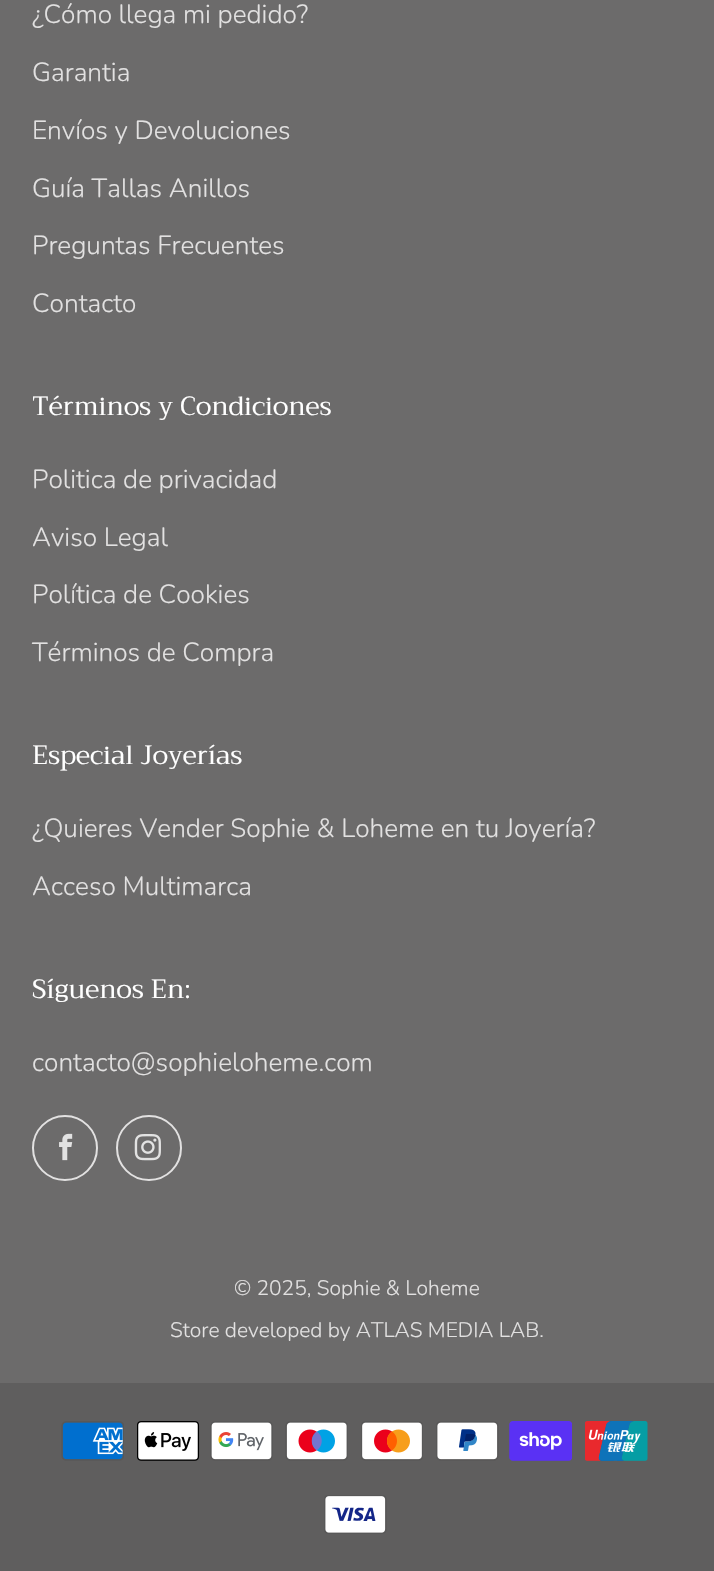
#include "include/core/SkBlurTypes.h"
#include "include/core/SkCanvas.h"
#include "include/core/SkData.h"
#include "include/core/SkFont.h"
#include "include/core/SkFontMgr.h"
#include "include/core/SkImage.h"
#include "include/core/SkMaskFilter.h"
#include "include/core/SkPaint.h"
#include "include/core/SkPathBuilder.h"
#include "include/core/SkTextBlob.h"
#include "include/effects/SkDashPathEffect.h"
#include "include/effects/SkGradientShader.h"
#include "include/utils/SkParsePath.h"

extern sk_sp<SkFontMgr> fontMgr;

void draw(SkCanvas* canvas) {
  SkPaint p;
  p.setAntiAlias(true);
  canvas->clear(SkColorSetRGB(108, 107, 107));
  p.setStyle(SkPaint::kStroke_Style);
  p.setStrokeWidth(2);
  p.setColor(SkColorSetRGB(226, 225, 225));
  canvas->drawCircle(65, 1148, 32, p);
  canvas->drawImageRect(SkImages::DeferredFromEncodedData(SkData::MakeFromFileName("images/1.png")), SkRect::MakeLTRB(59, 1133, 73, 1161), SkSamplingOptions());
  canvas->drawCircle(149, 1148, 32, p);
  canvas->drawImageRect(SkImages::DeferredFromEncodedData(SkData::MakeFromFileName("images/2.png")), SkRect::MakeLTRB(134, 1134, 161, 1161), SkSamplingOptions());
  p.setStyle(SkPaint::kFill_Style);
  p.setColor(SkColorSetRGB(95, 94, 94));
  canvas->drawRect(SkRect::MakeLTRB(0, 1383, 714, 1571), p);
  canvas->drawImageRect(SkImages::DeferredFromEncodedData(SkData::MakeFromFileName("images/3.png")), SkRect::MakeLTRB(61, 1421, 124, 1461), SkSamplingOptions());
  canvas->drawImageRect(SkImages::DeferredFromEncodedData(SkData::MakeFromFileName("images/4.png")), SkRect::MakeLTRB(137, 1421, 200, 1461), SkSamplingOptions());
  canvas->drawImageRect(SkImages::DeferredFromEncodedData(SkData::MakeFromFileName("images/5.png")), SkRect::MakeLTRB(210, 1421, 273, 1461), SkSamplingOptions());
  canvas->drawImageRect(SkImages::DeferredFromEncodedData(SkData::MakeFromFileName("images/6.png")), SkRect::MakeLTRB(285, 1421, 348, 1461), SkSamplingOptions());
  canvas->drawImageRect(SkImages::DeferredFromEncodedData(SkData::MakeFromFileName("images/7.png")), SkRect::MakeLTRB(361, 1421, 423, 1461), SkSamplingOptions());
  canvas->drawImageRect(SkImages::DeferredFromEncodedData(SkData::MakeFromFileName("images/8.png")), SkRect::MakeLTRB(436, 1421, 499, 1461), SkSamplingOptions());
  canvas->drawImageRect(SkImages::DeferredFromEncodedData(SkData::MakeFromFileName("images/9.png")), SkRect::MakeLTRB(509, 1421, 572, 1461), SkSamplingOptions());
  canvas->drawImageRect(SkImages::DeferredFromEncodedData(SkData::MakeFromFileName("images/10.png")), SkRect::MakeLTRB(585, 1421, 648, 1461), SkSamplingOptions());
  canvas->drawImageRect(SkImages::DeferredFromEncodedData(SkData::MakeFromFileName("images/11.png")), SkRect::MakeLTRB(324, 1495, 387, 1534), SkSamplingOptions());
  SkFont font1(fontMgr->matchFamilyStyle("Nunito", SkFontStyle(300, SkFontStyle::kNormal_Width, SkFontStyle::kUpright_Slant)), 26.25f);
  font1.setSubpixel(true);
  p.setColor(SkColorSetRGB(226, 225, 225));
  canvas->drawString("¿Cómo llega mi pedido?", 32, 23, font1, p);
  canvas->drawString("Garantia", 32, 81, font1, p);
  canvas->drawString("Envíos y Devoluciones", 32, 139, font1, p);
  canvas->drawString("Guía Tallas Anillos", 32, 197, font1, p);
  canvas->drawString("Preguntas Frecuentes", 32, 254, font1, p);
  canvas->drawString("Contacto", 32, 312, font1, p);
  SkFont font2(fontMgr->matchFamilyStyle("Trirong", SkFontStyle::Normal()), 26.25f);
  font2.setSubpixel(true);
  p.setColor(SK_ColorWHITE);
  canvas->drawString("Términos y Condiciones", 32, 415, font2, p);
  p.setColor(SkColorSetRGB(226, 225, 225));
  canvas->drawString("Politica de privacidad", 32, 488, font1, p);
  canvas->drawString("Aviso Legal", 32, 546, font1, p);
  canvas->drawString("Política de Cookies", 32, 603, font1, p);
  canvas->drawString("Términos de Compra", 32, 661, font1, p);
  p.setColor(SK_ColorWHITE);
  canvas->drawString("Especial Joyerías", 32, 764, font2, p);
  p.setColor(SkColorSetRGB(226, 225, 225));
  canvas->drawString("¿Quieres Vender Sophie & Loheme en tu Joyería?", 32, 837, font1, p);
  canvas->drawString("Acceso Multimarca", 32, 895, font1, p);
  p.setColor(SK_ColorWHITE);
  canvas->drawString("Síguenos En:", 32, 998, font2, p);
  p.setColor(SkColorSetRGB(226, 225, 225));
  canvas->drawString("contacto@sophieloheme.com", 32, 1071, font1, p);
  SkFont font3(fontMgr->matchFamilyStyle("Nunito", SkFontStyle(300, SkFontStyle::kNormal_Width, SkFontStyle::kUpright_Slant)), 21);
  font3.setSubpixel(true);
  canvas->drawString("© 2025, Sophie & Loheme", 234, 1295, font3, p);
  canvas->drawString("Store developed by ATLAS MEDIA LAB.", 170, 1337, font3, p);
}
